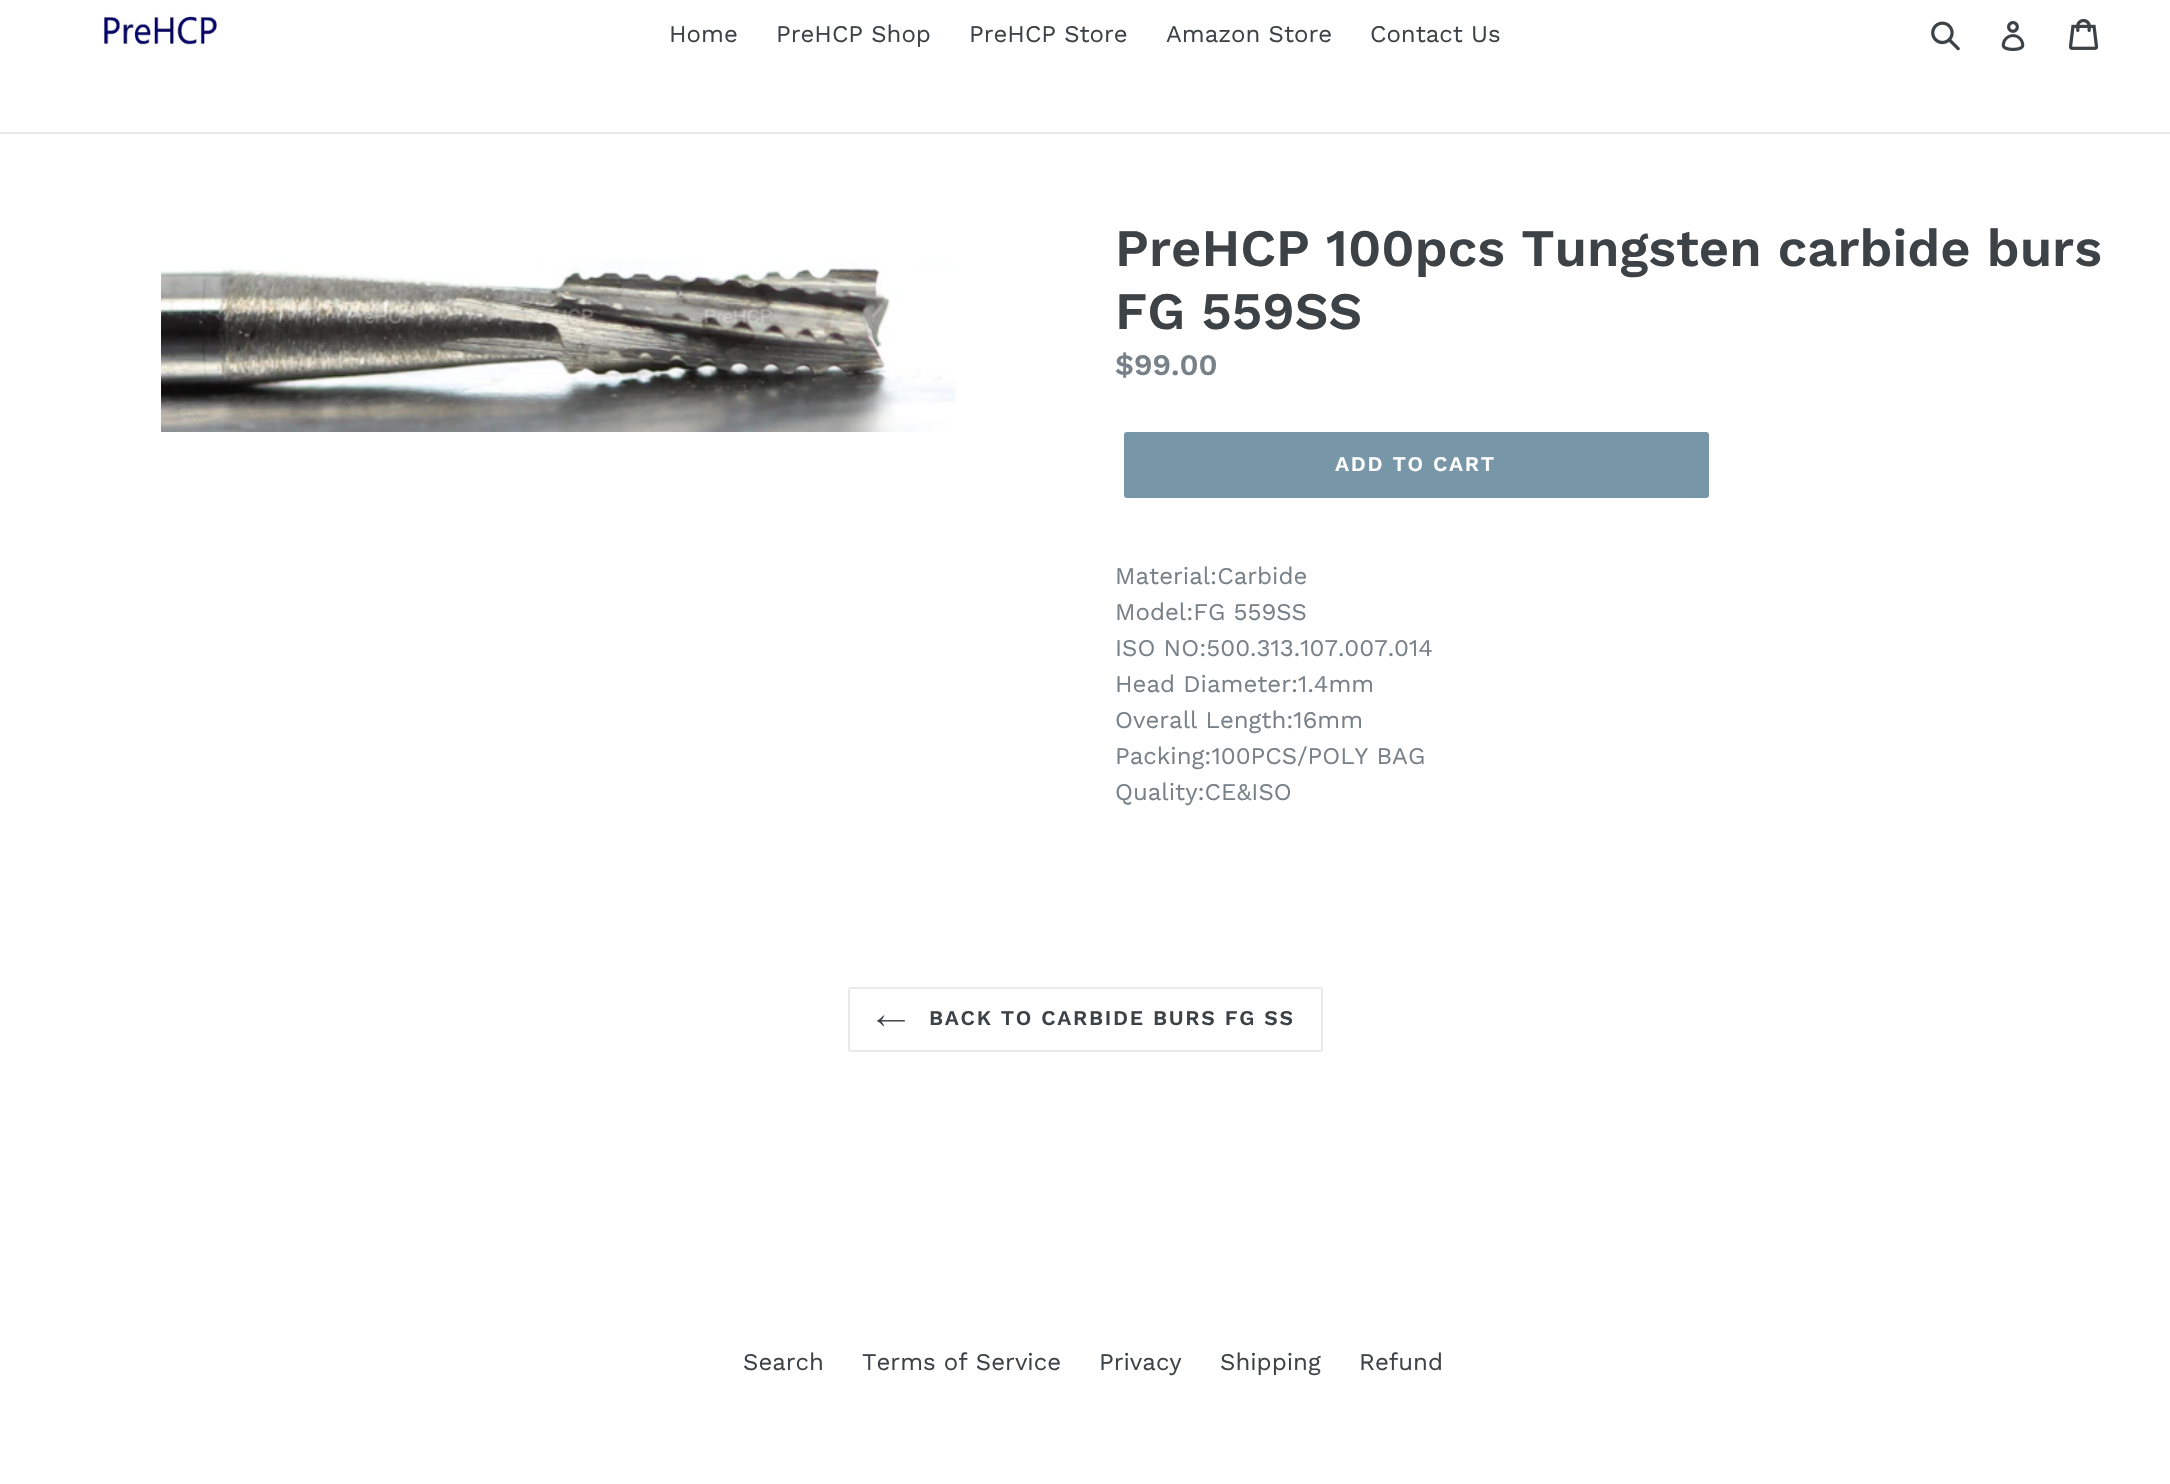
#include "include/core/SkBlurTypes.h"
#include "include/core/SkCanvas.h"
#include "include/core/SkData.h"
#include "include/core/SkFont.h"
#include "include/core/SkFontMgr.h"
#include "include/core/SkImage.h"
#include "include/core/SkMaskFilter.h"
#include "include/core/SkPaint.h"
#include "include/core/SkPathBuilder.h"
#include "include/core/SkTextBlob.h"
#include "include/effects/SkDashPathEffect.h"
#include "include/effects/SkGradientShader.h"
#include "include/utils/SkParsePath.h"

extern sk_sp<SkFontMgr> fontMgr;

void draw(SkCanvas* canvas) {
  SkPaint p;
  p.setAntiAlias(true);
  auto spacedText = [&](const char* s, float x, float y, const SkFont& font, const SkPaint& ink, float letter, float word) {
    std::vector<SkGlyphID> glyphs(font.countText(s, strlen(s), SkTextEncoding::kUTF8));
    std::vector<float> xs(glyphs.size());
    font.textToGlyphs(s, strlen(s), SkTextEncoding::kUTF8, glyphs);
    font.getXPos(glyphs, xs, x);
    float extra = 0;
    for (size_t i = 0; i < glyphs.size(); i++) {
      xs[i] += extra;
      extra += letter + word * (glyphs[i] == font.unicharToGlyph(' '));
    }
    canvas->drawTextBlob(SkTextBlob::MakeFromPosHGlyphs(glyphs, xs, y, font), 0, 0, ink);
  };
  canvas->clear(SK_ColorWHITE);
  p.setColor(SkColorSetRGB(232, 233, 235));
  canvas->drawRect(SkRect::MakeLTRB(0, 132, 2170, 134), p);
  canvas->drawImageRect(SkImages::DeferredFromEncodedData(SkData::MakeFromFileName("images/1.png")), SkRect::MakeLTRB(103, 15, 222, 47), SkSamplingOptions());
  canvas->drawImageRect(SkImages::DeferredFromEncodedData(SkData::MakeFromFileName("images/2.png")), SkRect::MakeLTRB(1931, 21, 1960, 51), SkSamplingOptions());
  canvas->drawImageRect(SkImages::DeferredFromEncodedData(SkData::MakeFromFileName("images/3.png")), SkRect::MakeLTRB(2001, 21, 2025, 51), SkSamplingOptions());
  canvas->drawImageRect(SkImages::DeferredFromEncodedData(SkData::MakeFromFileName("images/4.png")), SkRect::MakeLTRB(2069, 18, 2099, 50), SkSamplingOptions());
  canvas->drawImageRect(SkImages::DeferredFromEncodedData(SkData::MakeFromFileName("images/5.png")), SkRect::MakeLTRB(161, 259, 956, 432), SkSamplingOptions());
  p.setColor(SkColorSetRGB(119, 150, 168));
  canvas->drawRoundRect(SkRect::MakeLTRB(1124, 432, 1709, 498), 3, 3, p);
  p.setStyle(SkPaint::kStroke_Style);
  p.setStrokeWidth(2);
  p.setColor(SkColorSetRGB(232, 233, 235));
  canvas->drawRoundRect(SkRect::MakeLTRB(849, 988, 1322, 1051), 2, 2, p);
  canvas->drawImageRect(SkImages::DeferredFromEncodedData(SkData::MakeFromFileName("images/6.png")), SkRect::MakeLTRB(877, 1015, 905, 1027), SkSamplingOptions());
  SkFont font1(fontMgr->matchFamilyStyle("Work Sans", SkFontStyle::Normal()), 24);
  font1.setSubpixel(true);
  p.setStyle(SkPaint::kFill_Style);
  p.setColor(SkColorSetRGB(61, 66, 70));
  canvas->drawString("Home", 669, 42, font1, p);
  canvas->drawString("PreHCP Shop", 776, 42, font1, p);
  canvas->drawString("PreHCP Store", 969, 42, font1, p);
  canvas->drawString("Amazon Store", 1166, 42, font1, p);
  canvas->drawString("Contact Us", 1370, 42, font1, p);
  SkFont font2(fontMgr->matchFamilyStyle("Work Sans", SkFontStyle(600, SkFontStyle::kNormal_Width, SkFontStyle::kUpright_Slant)), 52.5f);
  font2.setSubpixel(true);
  canvas->drawString("PreHCP 100pcs Tungsten carbide burs", 1115, 266, font2, p);
  canvas->drawString("FG 559SS", 1115, 329, font2, p);
  SkFont font3(fontMgr->matchFamilyStyle("Work Sans", SkFontStyle(600, SkFontStyle::kNormal_Width, SkFontStyle::kUpright_Slant)), 30);
  font3.setSubpixel(true);
  p.setColor(SkColorSetRGB(120, 129, 136));
  canvas->drawString("$99.00", 1115, 375, font3, p);
  SkFont font4(fontMgr->matchFamilyStyle("Work Sans", SkFontStyle(600, SkFontStyle::kNormal_Width, SkFontStyle::kUpright_Slant)), 21);
  font4.setSubpixel(true);
  p.setColor(SK_ColorWHITE);
  spacedText("ADD TO CART", 1335, 471, font4, p, 1.7f, 0);
  p.setColor(SkColorSetRGB(120, 129, 136));
  canvas->drawString("Material:Carbide", 1115, 584, font1, p);
  canvas->drawString("Model:FG 559SS", 1115, 620, font1, p);
  canvas->drawString("ISO NO:500.313.107.007.014", 1115, 656, font1, p);
  canvas->drawString("Head Diameter:1.4mm", 1115, 692, font1, p);
  canvas->drawString("Overall Length:16mm", 1115, 728, font1, p);
  canvas->drawString("Packing:100PCS/POLY BAG", 1115, 764, font1, p);
  canvas->drawString("Quality:CE&ISO", 1115, 800, font1, p);
  p.setColor(SkColorSetRGB(61, 66, 70));
  spacedText("BACK TO CARBIDE BURS FG SS", 929, 1025, font4, p, 1.7f, 0);
  canvas->drawString("Search", 743, 1370, font1, p);
  canvas->drawString("Terms of Service", 862, 1370, font1, p);
  canvas->drawString("Privacy", 1099, 1370, font1, p);
  canvas->drawString("Shipping", 1220, 1370, font1, p);
  canvas->drawString("Refund", 1359, 1370, font1, p);
}
